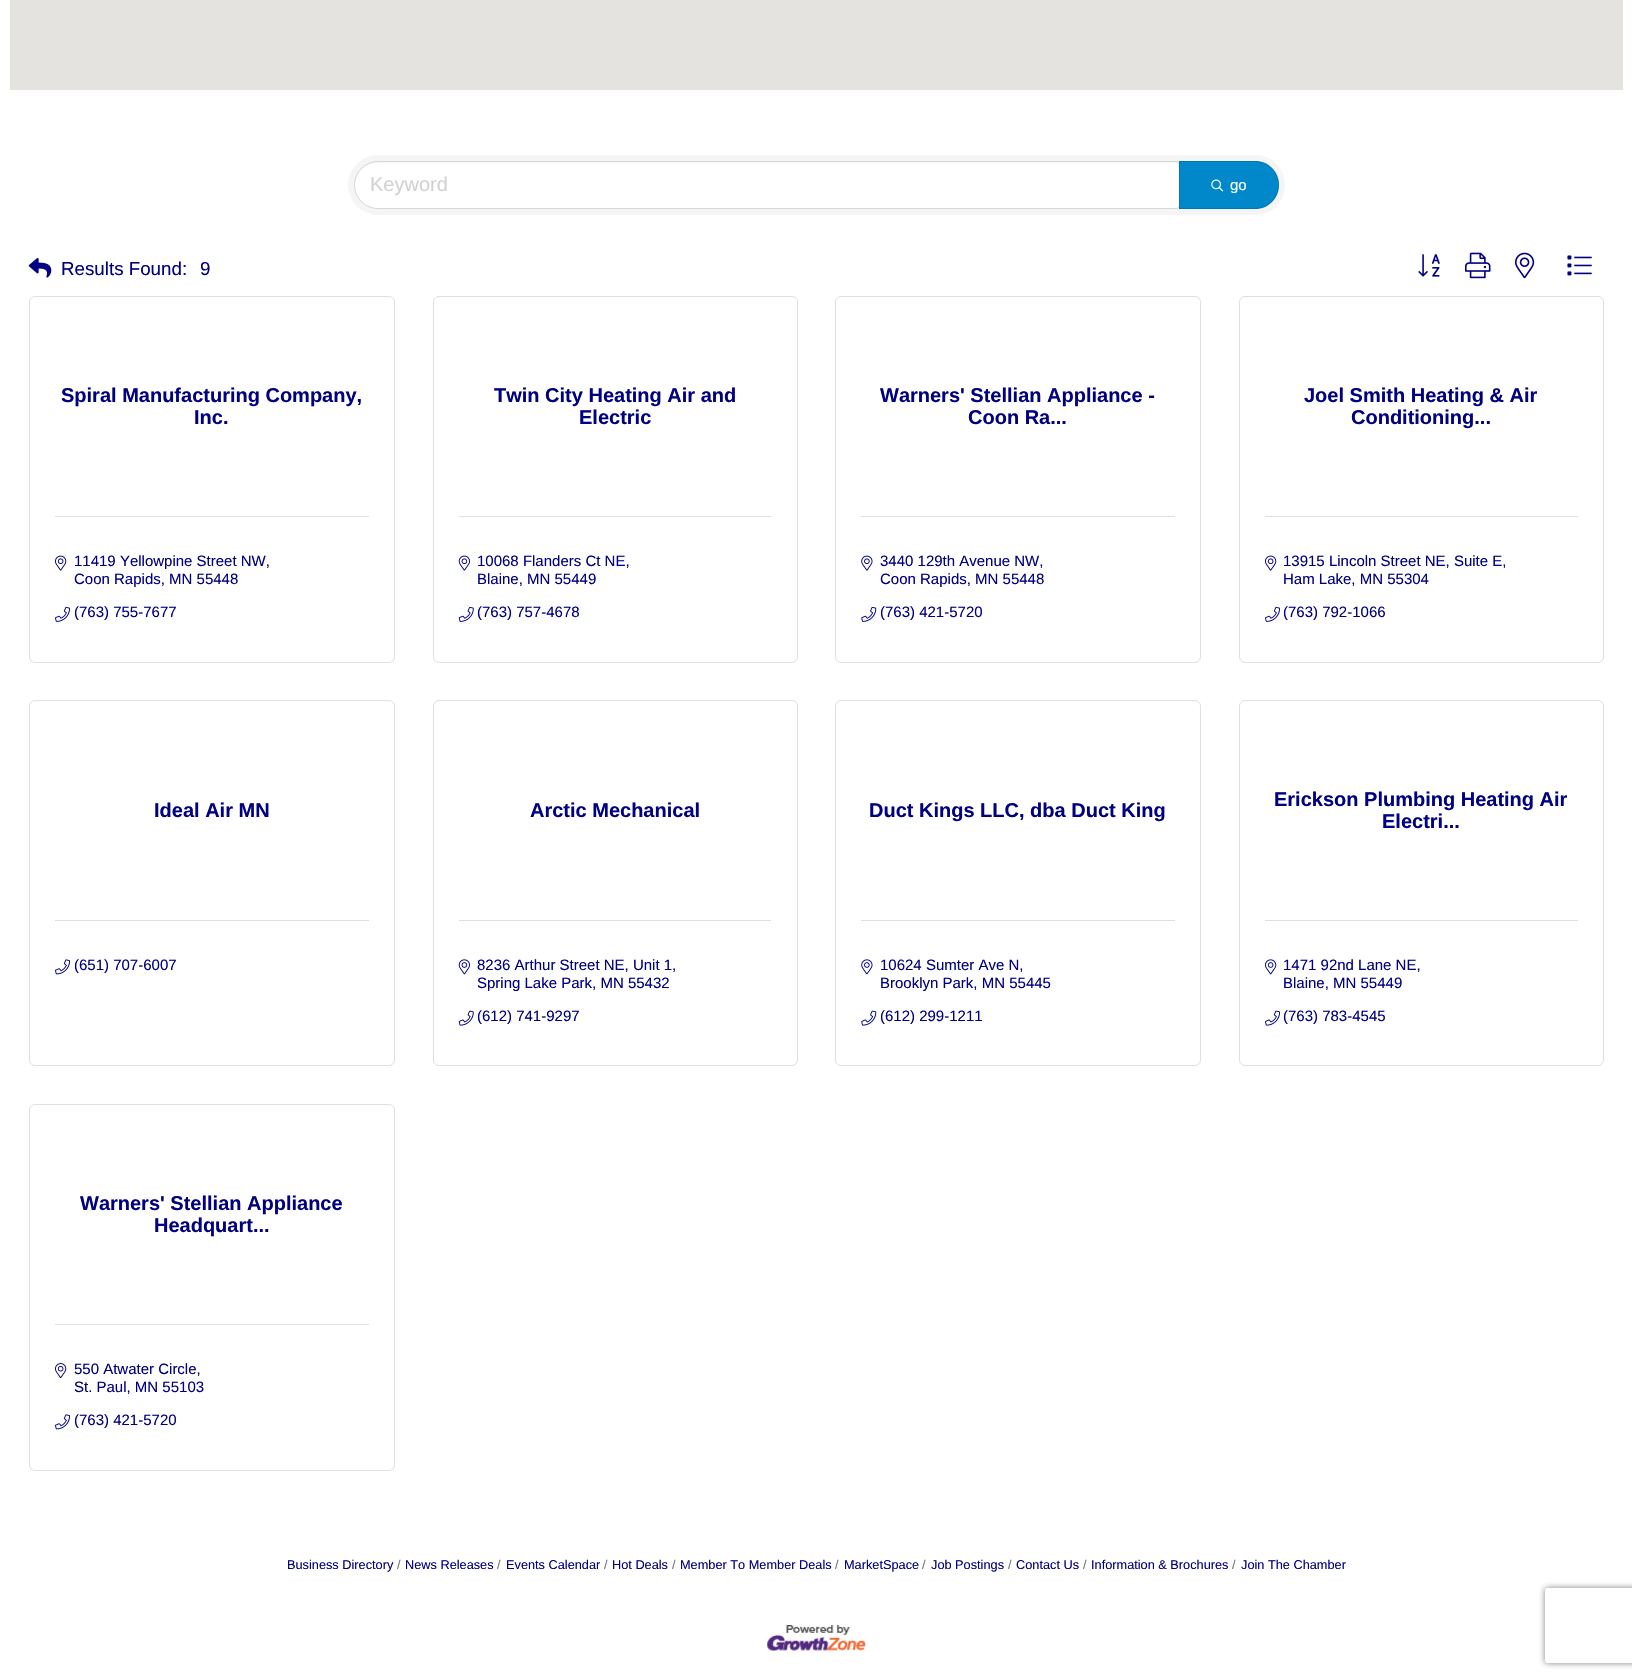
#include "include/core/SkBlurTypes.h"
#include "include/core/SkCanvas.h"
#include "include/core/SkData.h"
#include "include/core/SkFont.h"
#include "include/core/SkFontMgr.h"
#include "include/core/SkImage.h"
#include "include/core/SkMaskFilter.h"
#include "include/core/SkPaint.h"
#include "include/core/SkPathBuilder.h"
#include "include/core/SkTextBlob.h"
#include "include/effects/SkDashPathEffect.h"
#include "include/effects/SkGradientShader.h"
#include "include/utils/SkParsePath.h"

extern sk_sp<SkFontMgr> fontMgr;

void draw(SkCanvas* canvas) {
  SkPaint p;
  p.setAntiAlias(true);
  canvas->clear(SK_ColorWHITE);
  p.setColor(SkColorSetRGB(229, 227, 223));
  canvas->drawRect(SkRect::MakeLTRB(10, 0, 1623, 90), p);
  p.setColor(SkColorSetRGB(245, 245, 245));
  canvas->drawRoundRect(SkRect::MakeLTRB(348, 155, 1285, 215), 30, 30, p);
  p.setColor(SK_ColorWHITE);
  canvas->drawPath(SkPathBuilder().moveTo(377.5f, 163).lineTo(1176.5f, 163).cubicTo(1178, 163, 1179, 164, 1179, 165.5f).lineTo(1179, 205.5f).cubicTo(1179, 207, 1178, 208, 1176.5f, 208).lineTo(377.5f, 208).cubicTo(365, 208, 355, 198, 355, 185.5f).cubicTo(355, 173, 365, 163, 377.5f, 163).close().detach(), p);
  p.setStyle(SkPaint::kStroke_Style);
  p.setStrokeWidth(1);
  p.setColor(SkColorSetARGB(31, 0, 0, 0));
  canvas->drawPath(SkPathBuilder().moveTo(378, 161.5f).lineTo(1176, 161.5f).cubicTo(1178, 161.5f, 1179.5f, 163, 1179.5f, 165).lineTo(1179.5f, 205).cubicTo(1179.5f, 207, 1178, 208.5f, 1176, 208.5f).lineTo(378, 208.5f).cubicTo(365, 208.5f, 354.5f, 198, 354.5f, 185).cubicTo(354.5f, 172, 365, 161.5f, 378, 161.5f).close().detach(), p);
  p.setStyle(SkPaint::kFill_Style);
  p.setColor(SkColorSetRGB(0, 136, 202));
  canvas->drawPath(SkPathBuilder().moveTo(1179, 161).lineTo(1255, 161).cubicTo(1268.5f, 161, 1279, 171.5f, 1279, 185).cubicTo(1279, 198.5f, 1268.5f, 209, 1255, 209).lineTo(1179, 209).close().detach(), p);
  p.setStyle(SkPaint::kStroke_Style);
  p.setColor(SkColorSetARGB(31, 0, 0, 0));
  canvas->drawPath(SkPathBuilder().moveTo(1179.5f, 161.5f).lineTo(1255, 161.5f).cubicTo(1268, 161.5f, 1278.5f, 172, 1278.5f, 185).cubicTo(1278.5f, 198, 1268, 208.5f, 1255, 208.5f).lineTo(1179.5f, 208.5f).close().detach(), p);
  canvas->drawImageRect(SkImages::DeferredFromEncodedData(SkData::MakeFromFileName("images/1.png")), SkRect::MakeLTRB(1211, 179, 1224, 192), SkSamplingOptions());
  canvas->drawImageRect(SkImages::DeferredFromEncodedData(SkData::MakeFromFileName("images/2.png")), SkRect::MakeLTRB(28, 258, 52, 278), SkSamplingOptions());
  canvas->drawImageRect(SkImages::DeferredFromEncodedData(SkData::MakeFromFileName("images/3.png")), SkRect::MakeLTRB(1418, 254, 1440, 277), SkSamplingOptions());
  canvas->drawImageRect(SkImages::DeferredFromEncodedData(SkData::MakeFromFileName("images/4.png")), SkRect::MakeLTRB(1465, 252, 1491, 279), SkSamplingOptions());
  canvas->drawImageRect(SkImages::DeferredFromEncodedData(SkData::MakeFromFileName("images/5.png")), SkRect::MakeLTRB(1515, 252, 1535, 279), SkSamplingOptions());
  canvas->drawImageRect(SkImages::DeferredFromEncodedData(SkData::MakeFromFileName("images/6.png")), SkRect::MakeLTRB(1567, 255, 1592, 276), SkSamplingOptions());
  p.setColor(SkColorSetRGB(223, 223, 223));
  canvas->drawRoundRect(SkRect::MakeLTRB(29.5f, 296.5f, 394.5f, 662.5f), 5.5f, 5.5f, p);
  p.setStyle(SkPaint::kFill_Style);
  canvas->drawRect(SkRect::MakeLTRB(55, 516, 369, 517), p);
  canvas->drawImageRect(SkImages::DeferredFromEncodedData(SkData::MakeFromFileName("images/7.png")), SkRect::MakeLTRB(55, 555, 67, 571), SkSamplingOptions());
  canvas->drawImageRect(SkImages::DeferredFromEncodedData(SkData::MakeFromFileName("images/8.png")), SkRect::MakeLTRB(55, 606, 70, 622), SkSamplingOptions());
  p.setStyle(SkPaint::kStroke_Style);
  canvas->drawRoundRect(SkRect::MakeLTRB(433.5f, 296.5f, 797.5f, 662.5f), 5.5f, 5.5f, p);
  p.setStyle(SkPaint::kFill_Style);
  canvas->drawRect(SkRect::MakeLTRB(459, 516, 771, 517), p);
  canvas->drawImageRect(SkImages::DeferredFromEncodedData(SkData::MakeFromFileName("images/9.png")), SkRect::MakeLTRB(458, 555, 470, 571), SkSamplingOptions());
  canvas->drawImageRect(SkImages::DeferredFromEncodedData(SkData::MakeFromFileName("images/10.png")), SkRect::MakeLTRB(458, 606, 474, 622), SkSamplingOptions());
  p.setStyle(SkPaint::kStroke_Style);
  canvas->drawRoundRect(SkRect::MakeLTRB(835.5f, 296.5f, 1200.5f, 662.5f), 5.5f, 5.5f, p);
  p.setStyle(SkPaint::kFill_Style);
  canvas->drawRect(SkRect::MakeLTRB(861, 516, 1175, 517), p);
  canvas->drawImageRect(SkImages::DeferredFromEncodedData(SkData::MakeFromFileName("images/11.png")), SkRect::MakeLTRB(861, 555, 873, 571), SkSamplingOptions());
  canvas->drawImageRect(SkImages::DeferredFromEncodedData(SkData::MakeFromFileName("images/12.png")), SkRect::MakeLTRB(861, 606, 877, 622), SkSamplingOptions());
  p.setStyle(SkPaint::kStroke_Style);
  canvas->drawRoundRect(SkRect::MakeLTRB(1239.5f, 296.5f, 1603.5f, 662.5f), 5.5f, 5.5f, p);
  p.setStyle(SkPaint::kFill_Style);
  canvas->drawRect(SkRect::MakeLTRB(1265, 516, 1578, 517), p);
  canvas->drawImageRect(SkImages::DeferredFromEncodedData(SkData::MakeFromFileName("images/7.png")), SkRect::MakeLTRB(1265, 555, 1277, 571), SkSamplingOptions());
  canvas->drawImageRect(SkImages::DeferredFromEncodedData(SkData::MakeFromFileName("images/8.png")), SkRect::MakeLTRB(1265, 606, 1280, 622), SkSamplingOptions());
  p.setStyle(SkPaint::kStroke_Style);
  canvas->drawRoundRect(SkRect::MakeLTRB(29.5f, 700.5f, 394.5f, 1065.5f), 5.5f, 5.5f, p);
  p.setStyle(SkPaint::kFill_Style);
  canvas->drawRect(SkRect::MakeLTRB(55, 920, 369, 921), p);
  canvas->drawImageRect(SkImages::DeferredFromEncodedData(SkData::MakeFromFileName("images/13.png")), SkRect::MakeLTRB(55, 959, 70, 975), SkSamplingOptions());
  p.setStyle(SkPaint::kStroke_Style);
  canvas->drawRoundRect(SkRect::MakeLTRB(433.5f, 700.5f, 797.5f, 1065.5f), 5.5f, 5.5f, p);
  p.setStyle(SkPaint::kFill_Style);
  canvas->drawRect(SkRect::MakeLTRB(459, 920, 771, 921), p);
  canvas->drawImageRect(SkImages::DeferredFromEncodedData(SkData::MakeFromFileName("images/14.png")), SkRect::MakeLTRB(458, 959, 470, 975), SkSamplingOptions());
  canvas->drawImageRect(SkImages::DeferredFromEncodedData(SkData::MakeFromFileName("images/15.png")), SkRect::MakeLTRB(458, 1010, 474, 1026), SkSamplingOptions());
  p.setStyle(SkPaint::kStroke_Style);
  canvas->drawRoundRect(SkRect::MakeLTRB(835.5f, 700.5f, 1200.5f, 1065.5f), 5.5f, 5.5f, p);
  p.setStyle(SkPaint::kFill_Style);
  canvas->drawRect(SkRect::MakeLTRB(861, 920, 1175, 921), p);
  canvas->drawImageRect(SkImages::DeferredFromEncodedData(SkData::MakeFromFileName("images/16.png")), SkRect::MakeLTRB(861, 959, 873, 975), SkSamplingOptions());
  canvas->drawImageRect(SkImages::DeferredFromEncodedData(SkData::MakeFromFileName("images/17.png")), SkRect::MakeLTRB(861, 1010, 877, 1026), SkSamplingOptions());
  p.setStyle(SkPaint::kStroke_Style);
  canvas->drawRoundRect(SkRect::MakeLTRB(1239.5f, 700.5f, 1603.5f, 1065.5f), 5.5f, 5.5f, p);
  p.setStyle(SkPaint::kFill_Style);
  canvas->drawRect(SkRect::MakeLTRB(1265, 920, 1578, 921), p);
  canvas->drawImageRect(SkImages::DeferredFromEncodedData(SkData::MakeFromFileName("images/18.png")), SkRect::MakeLTRB(1265, 959, 1277, 975), SkSamplingOptions());
  canvas->drawImageRect(SkImages::DeferredFromEncodedData(SkData::MakeFromFileName("images/19.png")), SkRect::MakeLTRB(1265, 1010, 1280, 1026), SkSamplingOptions());
  p.setStyle(SkPaint::kStroke_Style);
  canvas->drawRoundRect(SkRect::MakeLTRB(29.5f, 1104.5f, 394.5f, 1470.5f), 5.5f, 5.5f, p);
  p.setStyle(SkPaint::kFill_Style);
  canvas->drawRect(SkRect::MakeLTRB(55, 1324, 369, 1325), p);
  canvas->drawImageRect(SkImages::DeferredFromEncodedData(SkData::MakeFromFileName("images/20.png")), SkRect::MakeLTRB(55, 1363, 67, 1379), SkSamplingOptions());
  canvas->drawImageRect(SkImages::DeferredFromEncodedData(SkData::MakeFromFileName("images/13.png")), SkRect::MakeLTRB(55, 1414, 70, 1430), SkSamplingOptions());
  canvas->drawImageRect(SkImages::DeferredFromEncodedData(SkData::MakeFromFileName("images/21.png")), SkRect::MakeLTRB(767, 1625, 866, 1651), SkSamplingOptions());
  canvas->save();
  canvas->clipPath(SkPathBuilder(SkPathFillType::kEvenOdd).moveTo(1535, 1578).lineTo(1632, 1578).lineTo(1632, 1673).lineTo(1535, 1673).close().moveTo(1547.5f, 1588).lineTo(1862.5f, 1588).cubicTo(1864, 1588, 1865, 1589, 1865, 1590.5f).lineTo(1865, 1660.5f).cubicTo(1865, 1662, 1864, 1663, 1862.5f, 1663).lineTo(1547.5f, 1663).cubicTo(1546, 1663, 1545, 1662, 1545, 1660.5f).lineTo(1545, 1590.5f).cubicTo(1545, 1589, 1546, 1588, 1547.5f, 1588).close().detach(), true);
  p.setColor(SkColorSetRGB(128, 128, 128));
  p.setMaskFilter(SkMaskFilter::MakeBlur(kNormal_SkBlurStyle, 3));
  canvas->drawRoundRect(SkRect::MakeLTRB(1545, 1588, 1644, 1663), 2.5f, 2.5f, p);
  p.setMaskFilter(nullptr);
  canvas->restore();
  SkFont font1(fontMgr->matchFamilyStyle("Liberation Sans", SkFontStyle::Normal()), 20);
  font1.setSubpixel(true);
  p.setColor(SkColorSetRGB(210, 210, 210));
  canvas->drawString("Keyword", 370, 191, font1, p);
  SkFont font2(fontMgr->matchFamilyStyle("Liberation Sans", SkFontStyle::Normal()), 15);
  font2.setSubpixel(true);
  p.setColor(SK_ColorWHITE);
  canvas->drawString("go", 1230, 190, font2, p);
  SkFont font3(fontMgr->matchFamilyStyle("Liberation Sans", SkFontStyle::Normal()), 18.75f);
  font3.setSubpixel(true);
  p.setColor(SkColorSetRGB(0, 0, 128));
  canvas->drawString("Results Found:", 61, 275, font3, p);
  canvas->drawString("9", 200, 275, font3, p);
  SkFont font4(fontMgr->matchFamilyStyle("Liberation Sans", SkFontStyle::Bold()), 20);
  font4.setSubpixel(true);
  canvas->drawString("Spiral Manufacturing Company,", 61, 402, font4, p);
  canvas->drawString("Inc.", 194, 424, font4, p);
  canvas->drawString("11419 Yellowpine Street NW,", 74, 566, font2, p);
  canvas->drawString("Coon Rapids, MN 55448", 74, 584, font2, p);
  canvas->drawString("(763) 755-7677", 74, 617, font2, p);
  canvas->drawString("Twin City Heating Air and", 494, 402, font4, p);
  canvas->drawString("Electric", 579, 424, font4, p);
  canvas->drawString("10068 Flanders Ct NE,", 477, 566, font2, p);
  canvas->drawString("Blaine, MN 55449", 477, 584, font2, p);
  canvas->drawString("(763) 757-4678", 477, 617, font2, p);
  canvas->drawString("Warners' Stellian Appliance -", 880, 402, font4, p);
  canvas->drawString("Coon Ra...", 968, 424, font4, p);
  canvas->drawString("3440 129th Avenue NW,", 880, 566, font2, p);
  canvas->drawString("Coon Rapids, MN 55448", 880, 584, font2, p);
  canvas->drawString("(763) 421-5720", 880, 617, font2, p);
  canvas->drawString("Joel Smith Heating & Air", 1304, 402, font4, p);
  canvas->drawString("Conditioning...", 1351, 424, font4, p);
  canvas->drawString("13915 Lincoln Street NE, Suite E,", 1283, 566, font2, p);
  canvas->drawString("Ham Lake, MN 55304", 1283, 584, font2, p);
  canvas->drawString("(763) 792-1066", 1283, 617, font2, p);
  canvas->drawString("Ideal Air MN", 154, 817, font4, p);
  canvas->drawString("(651) 707-6007", 74, 970, font2, p);
  canvas->drawString("Arctic Mechanical", 530, 817, font4, p);
  canvas->drawString("8236 Arthur Street NE, Unit 1,", 477, 970, font2, p);
  canvas->drawString("Spring Lake Park, MN 55432", 477, 988, font2, p);
  canvas->drawString("(612) 741-9297", 477, 1021, font2, p);
  canvas->drawString("Duct Kings LLC, dba Duct King", 869, 817, font4, p);
  canvas->drawString("10624 Sumter Ave N,", 880, 970, font2, p);
  canvas->drawString("Brooklyn Park, MN 55445", 880, 988, font2, p);
  canvas->drawString("(612) 299-1211", 880, 1021, font2, p);
  canvas->drawString("Erickson Plumbing Heating Air", 1274, 806, font4, p);
  canvas->drawString("Electri...", 1382, 828, font4, p);
  canvas->drawString("1471 92nd Lane NE,", 1283, 970, font2, p);
  canvas->drawString("Blaine, MN 55449", 1283, 988, font2, p);
  canvas->drawString("(763) 783-4545", 1283, 1021, font2, p);
  canvas->drawString("Warners' Stellian Appliance", 80, 1210, font4, p);
  canvas->drawString("Headquart...", 154, 1232, font4, p);
  canvas->drawString("550 Atwater Circle,", 74, 1374, font2, p);
  canvas->drawString("St. Paul, MN 55103", 74, 1392, font2, p);
  canvas->drawString("(763) 421-5720", 74, 1425, font2, p);
  SkFont font5(fontMgr->matchFamilyStyle("Liberation Sans", SkFontStyle::Normal()), 12.75f);
  font5.setSubpixel(true);
  canvas->drawString("Business Directory", 287, 1569, font5, p);
  p.setColor(SkColorSetRGB(108, 117, 125));
  canvas->drawString("/", 397, 1569, font5, p);
  p.setColor(SkColorSetRGB(0, 0, 128));
  canvas->drawString("News Releases", 405, 1569, font5, p);
  p.setColor(SkColorSetRGB(108, 117, 125));
  canvas->drawString("/", 497, 1569, font5, p);
  p.setColor(SkColorSetRGB(0, 0, 128));
  canvas->drawString("Events Calendar", 506, 1569, font5, p);
  p.setColor(SkColorSetRGB(108, 117, 125));
  canvas->drawString("/", 604, 1569, font5, p);
  p.setColor(SkColorSetRGB(0, 0, 128));
  canvas->drawString("Hot Deals", 612, 1569, font5, p);
  p.setColor(SkColorSetRGB(108, 117, 125));
  canvas->drawString("/", 672, 1569, font5, p);
  p.setColor(SkColorSetRGB(0, 0, 128));
  canvas->drawString("Member To Member Deals", 680, 1569, font5, p);
  p.setColor(SkColorSetRGB(108, 117, 125));
  canvas->drawString("/", 835, 1569, font5, p);
  p.setColor(SkColorSetRGB(0, 0, 128));
  canvas->drawString("MarketSpace", 844, 1569, font5, p);
  p.setColor(SkColorSetRGB(108, 117, 125));
  canvas->drawString("/", 922, 1569, font5, p);
  p.setColor(SkColorSetRGB(0, 0, 128));
  canvas->drawString("Job Postings", 931, 1569, font5, p);
  p.setColor(SkColorSetRGB(108, 117, 125));
  canvas->drawString("/", 1008, 1569, font5, p);
  p.setColor(SkColorSetRGB(0, 0, 128));
  canvas->drawString("Contact Us", 1016, 1569, font5, p);
  p.setColor(SkColorSetRGB(108, 117, 125));
  canvas->drawString("/", 1083, 1569, font5, p);
  p.setColor(SkColorSetRGB(0, 0, 128));
  canvas->drawString("Information & Brochures", 1091, 1569, font5, p);
  p.setColor(SkColorSetRGB(108, 117, 125));
  canvas->drawString("/", 1232, 1569, font5, p);
  p.setColor(SkColorSetRGB(0, 0, 128));
  canvas->drawString("Join The Chamber", 1241, 1569, font5, p);
}
